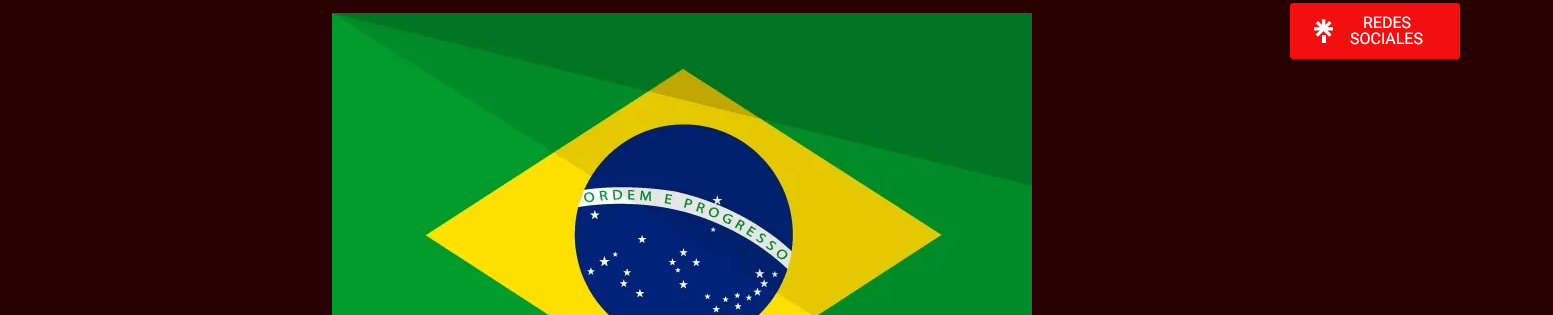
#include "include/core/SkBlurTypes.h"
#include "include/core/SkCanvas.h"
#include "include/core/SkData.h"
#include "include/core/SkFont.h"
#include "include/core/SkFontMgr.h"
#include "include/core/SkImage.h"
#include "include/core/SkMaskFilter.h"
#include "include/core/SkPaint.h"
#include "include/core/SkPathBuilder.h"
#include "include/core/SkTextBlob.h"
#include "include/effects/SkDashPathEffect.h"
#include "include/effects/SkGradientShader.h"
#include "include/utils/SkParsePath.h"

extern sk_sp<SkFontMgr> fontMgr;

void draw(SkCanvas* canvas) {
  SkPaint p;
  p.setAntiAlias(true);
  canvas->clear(SkColorSetRGB(40, 0, 0));
  canvas->drawImageRect(SkImages::DeferredFromEncodedData(SkData::MakeFromFileName("images/1.png")), SkRect::MakeLTRB(332, 13, 1032, 315), SkSamplingOptions());
  p.setColor(SkColorSetRGB(242, 15, 15));
  canvas->drawRoundRect(SkRect::MakeLTRB(1290, 3, 1460, 59), 3, 3, p);
  canvas->drawImageRect(SkImages::DeferredFromEncodedData(SkData::MakeFromFileName("images/2.png")), SkRect::MakeLTRB(1314, 19, 1333, 43), SkSamplingOptions());
  SkFont font1(fontMgr->matchFamilyStyle("Roboto", SkFontStyle::Normal()), 16);
  font1.setSubpixel(true);
  p.setColor(SK_ColorWHITE);
  canvas->drawString("REDES", 1363, 28, font1, p);
  canvas->drawString("SOCIALES", 1350, 44, font1, p);
}
